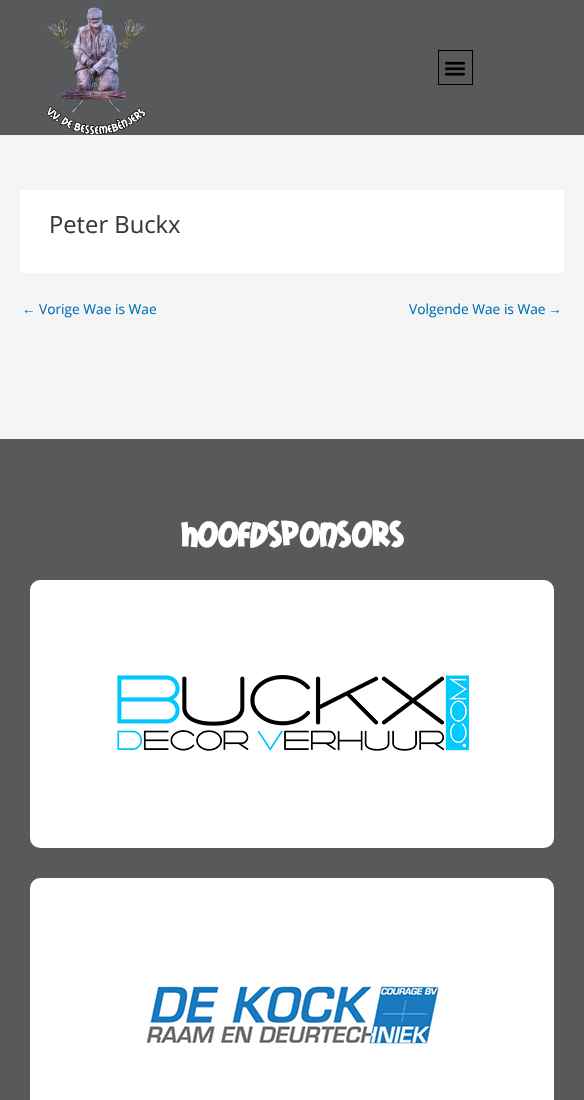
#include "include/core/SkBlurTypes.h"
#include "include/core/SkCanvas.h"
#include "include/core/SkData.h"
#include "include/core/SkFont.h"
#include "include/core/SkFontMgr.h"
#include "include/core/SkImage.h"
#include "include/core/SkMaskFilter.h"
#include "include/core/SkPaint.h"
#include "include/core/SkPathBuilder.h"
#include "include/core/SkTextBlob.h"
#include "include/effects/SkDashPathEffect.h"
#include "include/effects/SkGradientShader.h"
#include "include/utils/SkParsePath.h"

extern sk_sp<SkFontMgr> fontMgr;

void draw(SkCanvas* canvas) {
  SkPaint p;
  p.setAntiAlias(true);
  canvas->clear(SkColorSetRGB(245, 245, 245));
  p.setColor(SkColorSetRGB(88, 89, 91));
  canvas->drawRect(SkRect::MakeLTRB(0, 0, 584, 135), p);
  canvas->drawImageRect(SkImages::DeferredFromEncodedData(SkData::MakeFromFileName("images/1.png")), SkRect::MakeLTRB(46, 7, 146, 135), SkSamplingOptions());
  p.setStyle(SkPaint::kStroke_Style);
  p.setStrokeWidth(1);
  p.setColor(SK_ColorBLACK);
  canvas->drawRect(SkRect::MakeLTRB(438.5f, 50.5f, 472.5f, 84.5f), p);
  canvas->drawImageRect(SkImages::DeferredFromEncodedData(SkData::MakeFromFileName("images/2.png")), SkRect::MakeLTRB(445, 61, 465, 76), SkSamplingOptions());
  p.setStyle(SkPaint::kFill_Style);
  p.setColor(SK_ColorWHITE);
  canvas->drawRect(SkRect::MakeLTRB(20, 190, 564, 273), p);
  p.setColor(SkColorSetRGB(88, 89, 91));
  canvas->drawRect(SkRect::MakeLTRB(0, 439, 584, 1100), p);
  p.setColor(SK_ColorWHITE);
  canvas->drawRoundRect(SkRect::MakeLTRB(30, 580, 554, 848), 10, 10, p);
  canvas->drawImageRect(SkImages::DeferredFromEncodedData(SkData::MakeFromFileName("images/3.png")), SkRect::MakeLTRB(117, 675, 469, 751), SkSamplingOptions());
  canvas->drawRoundRect(SkRect::MakeLTRB(30, 878, 554, 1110), 10, 10, p);
  canvas->drawImageRect(SkImages::DeferredFromEncodedData(SkData::MakeFromFileName("images/4.png")), SkRect::MakeLTRB(146, 981, 442, 1048), SkSamplingOptions());
  SkFont font1(fontMgr->matchFamilyStyle("Open Sans", SkFontStyle::Normal()), 23.75f);
  font1.setSubpixel(true);
  p.setColor(SkColorSetRGB(58, 58, 58));
  canvas->drawString("Peter Buckx", 49, 233, font1, p);
  SkFont font2(fontMgr->matchFamilyStyle("Liberation Sans", SkFontStyle::Normal()), 13.75f);
  font2.setSubpixel(true);
  p.setColor(SkColorSetRGB(1, 112, 185));
  canvas->drawString("←", 22, 314, font2, p);
  SkFont font3(fontMgr->matchFamilyStyle("Open Sans", SkFontStyle::Normal()), 13.75f);
  font3.setSubpixel(true);
  canvas->drawString("Vorige Wae is Wae", 39, 314, font3, p);
  canvas->drawString("Volgende Wae is Wae", 409, 314, font3, p);
  canvas->drawString("→", 548, 314, font2, p);
  SkFont font4(fontMgr->matchFamilyStyle("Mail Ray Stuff", SkFontStyle::Bold()), 36);
  font4.setSubpixel(true);
  p.setColor(SK_ColorWHITE);
  canvas->drawString("Hoofdsponsors", 180, 546, font4, p);
}
